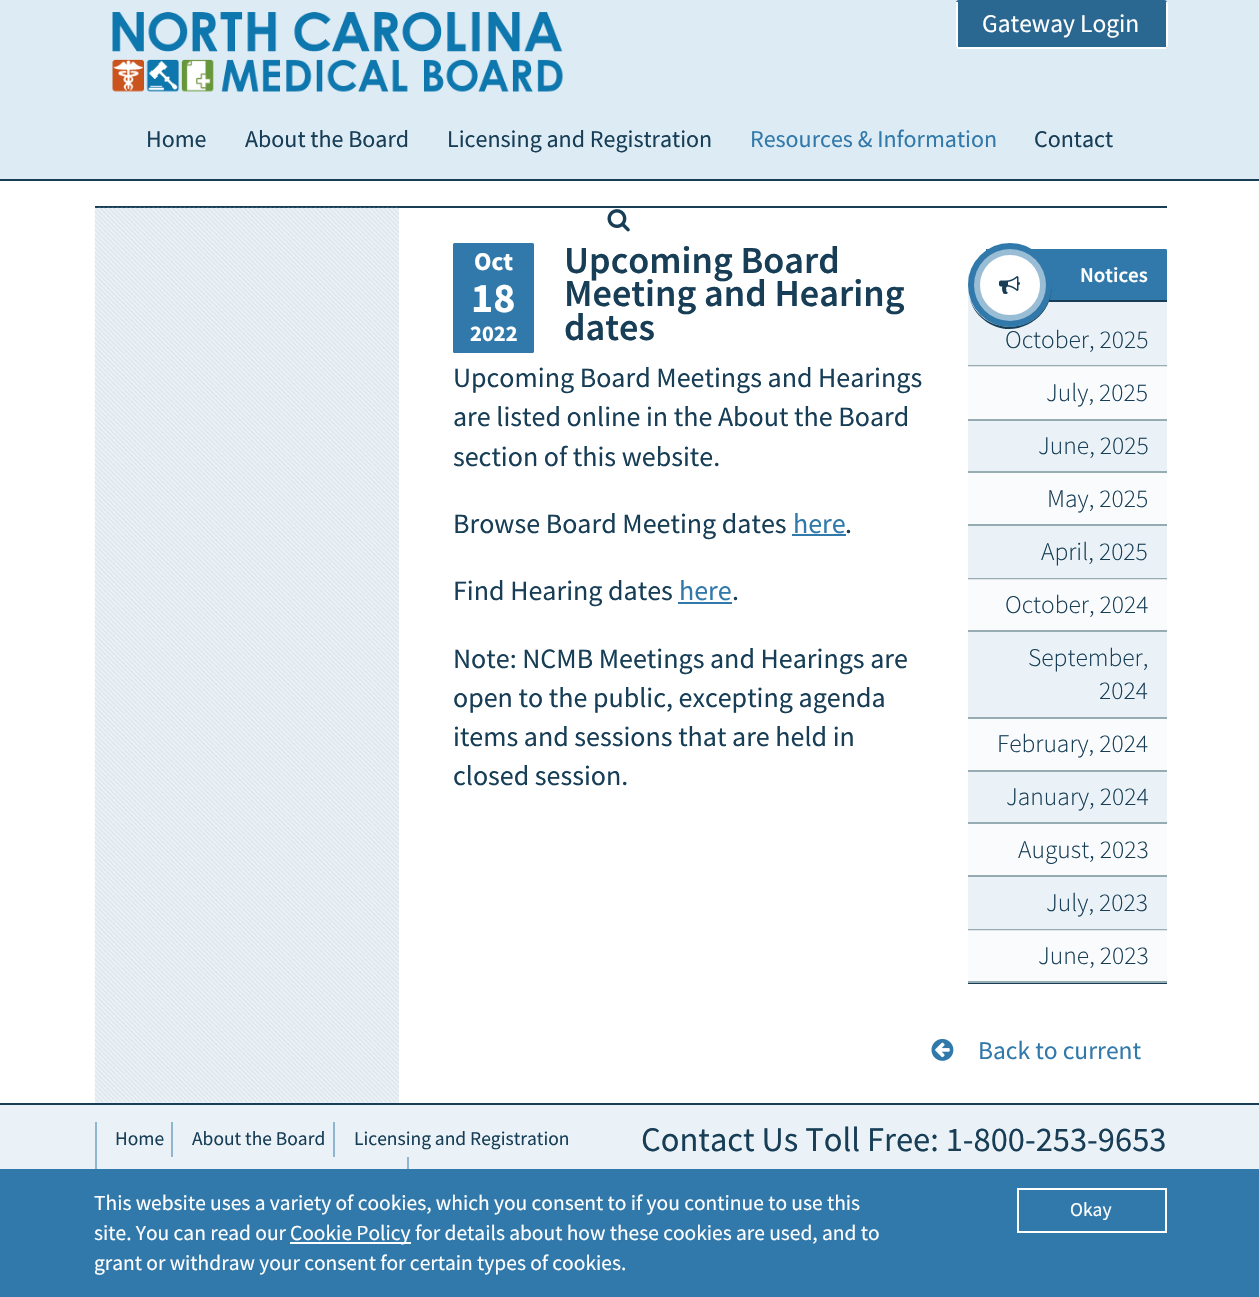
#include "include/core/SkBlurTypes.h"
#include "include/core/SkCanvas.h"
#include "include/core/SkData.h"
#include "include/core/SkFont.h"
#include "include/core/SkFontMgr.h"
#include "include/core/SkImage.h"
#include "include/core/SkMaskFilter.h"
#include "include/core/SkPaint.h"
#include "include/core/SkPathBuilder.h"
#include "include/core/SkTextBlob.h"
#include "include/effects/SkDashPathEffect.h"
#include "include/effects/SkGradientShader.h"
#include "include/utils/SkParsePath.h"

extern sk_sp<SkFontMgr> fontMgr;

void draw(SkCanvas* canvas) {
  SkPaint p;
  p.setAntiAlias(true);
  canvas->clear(SK_ColorWHITE);
  p.setColor(SkColorSetRGB(234, 242, 247));
  canvas->drawRect(SkRect::MakeLTRB(968, 273, 1167, 929), p);
  p.setColor(SkColorSetRGB(249, 251, 253));
  canvas->drawRect(SkRect::MakeLTRB(968, 931, 1167, 981), p);
  canvas->drawRect(SkRect::MakeLTRB(968, 580, 1167, 630), p);
  canvas->drawRect(SkRect::MakeLTRB(968, 367, 1167, 419), p);
  p.setColor(SkColorSetRGB(234, 242, 247));
  canvas->drawRect(SkRect::MakeLTRB(95, 208, 399, 1103), p);
  p.setColor(SkColorSetRGB(221, 235, 245));
  canvas->drawRect(SkRect::MakeLTRB(0, 0, 1259, 179), p);
  canvas->drawImageRect(SkImages::DeferredFromEncodedData(SkData::MakeFromFileName("images/1.png")), SkRect::MakeLTRB(112, 12, 563, 92), SkSamplingOptions());
  p.setColor(SkColorSetRGB(42, 103, 145));
  canvas->drawRoundRect(SkRect::MakeLTRB(956, 0, 1167, 48), 3, 3, p);
  p.setColor(SK_ColorWHITE);
  canvas->drawRect(SkRect::MakeLTRB(1166, 2, 1168, 47), p);
  canvas->drawRect(SkRect::MakeLTRB(957, 47, 1166, 49), p);
  canvas->drawRect(SkRect::MakeLTRB(956, 2, 958, 47), p);
  p.setColor(SkColorSetRGB(23, 62, 86));
  canvas->drawRect(SkRect::MakeLTRB(0, 179, 1259, 181), p);
  canvas->drawImageRect(SkImages::DeferredFromEncodedData(SkData::MakeFromFileName("images/2.png")), SkRect::MakeLTRB(607, 209, 630, 232), SkSamplingOptions());
  canvas->drawRect(SkRect::MakeLTRB(95, 206, 1167, 208), p);
  p.setColor(SkColorSetRGB(26, 68, 94));
  canvas->drawRect(SkRect::MakeLTRB(95, 207, 399, 208), p);
  canvas->drawImageRect(SkImages::DeferredFromEncodedData(SkData::MakeFromFileName("images/3.png")), SkRect::MakeLTRB(94, 207, 399, 1102), SkSamplingOptions());
  p.setColor(SkColorSetRGB(49, 121, 170));
  canvas->drawPath(SkPathBuilder().moveTo(454.5f, 244).lineTo(532.5f, 244).cubicTo(533, 244, 533, 244, 533, 244.5f).lineTo(533, 278).lineTo(454, 278).lineTo(454, 244.5f).cubicTo(454, 244, 454, 244, 454.5f, 244).close().detach(), p);
  p.setStyle(SkPaint::kStroke_Style);
  p.setStrokeWidth(2);
  canvas->drawPath(SkPathBuilder().moveTo(454.5f, 244).lineTo(532.5f, 244).cubicTo(533, 244, 533, 244, 533, 244.5f).lineTo(533, 278).lineTo(454, 278).lineTo(454, 244.5f).cubicTo(454, 244, 454, 244, 454.5f, 244).close().detach(), p);
  p.setStyle(SkPaint::kFill_Style);
  canvas->drawRect(SkRect::MakeLTRB(453, 279, 534, 317), p);
  canvas->drawPath(SkPathBuilder().moveTo(454, 318).lineTo(533, 318).lineTo(533, 351.5f).cubicTo(533, 352, 533, 352, 532.5f, 352).lineTo(454.5f, 352).cubicTo(454, 352, 454, 352, 454, 351.5f).close().detach(), p);
  p.setStyle(SkPaint::kStroke_Style);
  canvas->drawPath(SkPathBuilder().moveTo(454, 318).lineTo(533, 318).lineTo(533, 351.5f).cubicTo(533, 352, 533, 352, 532.5f, 352).lineTo(454.5f, 352).cubicTo(454, 352, 454, 352, 454, 351.5f).close().detach(), p);
  p.setStyle(SkPaint::kFill_Style);
  canvas->drawRect(SkRect::MakeLTRB(792, 534, 846, 536), p);
  canvas->drawRect(SkRect::MakeLTRB(678, 602, 732, 604), p);
  p.setColor(SkColorSetRGB(23, 62, 86));
  canvas->drawRect(SkRect::MakeLTRB(1048, 300, 1167, 302), p);
  p.setColor(SkColorSetRGB(49, 121, 170));
  canvas->drawPath(SkPathBuilder().moveTo(986, 249).lineTo(1165.5f, 249).cubicTo(1166.5f, 249, 1167, 249.5f, 1167, 250.5f).lineTo(1167, 300).lineTo(986, 300).close().detach(), p);
  p.setColor(SkColorSetRGB(23, 62, 86));
  canvas->drawPath(SkPathBuilder().moveTo(969, 296).cubicTo(971, 305, 976, 314, 984, 320).cubicTo(1015, 345, 1061, 314, 1050, 276).cubicTo(1052, 284, 1052, 293, 1048, 301).cubicTo(1033, 338, 979, 334, 969, 296).close().detach(), p);
  p.setColor(SK_ColorWHITE);
  canvas->drawCircle(1010, 285, 36, p);
  p.setStyle(SkPaint::kStroke_Style);
  p.setStrokeWidth(12);
  p.setColor(SkColorSetRGB(49, 121, 170));
  canvas->drawCircle(1010, 285, 36, p);
  p.setStyle(SkPaint::kFill_Style);
  p.setColor(SkColorSetARGB(128, 255, 255, 255));
  canvas->drawCircle(1010, 285, 36, p);
  canvas->drawImageRect(SkImages::DeferredFromEncodedData(SkData::MakeFromFileName("images/4.png")), SkRect::MakeLTRB(999, 276, 1020, 294), SkSamplingOptions());
  p.setColor(SkColorSetRGB(23, 62, 86));
  canvas->drawRect(SkRect::MakeLTRB(968, 983, 1167, 984), p);
  p.setColor(SkColorSetRGB(151, 171, 178));
  canvas->drawRect(SkRect::MakeLTRB(968, 365, 1167, 366), p);
  p.setColor(SkColorSetRGB(224, 230, 232));
  canvas->drawRect(SkRect::MakeLTRB(968, 366, 1167, 367), p);
  p.setColor(SkColorSetRGB(151, 171, 178));
  canvas->drawRect(SkRect::MakeLTRB(968, 419, 1167, 421), p);
  canvas->drawRect(SkRect::MakeLTRB(968, 471, 1167, 473), p);
  p.setColor(SkColorSetRGB(249, 251, 252));
  canvas->drawRect(SkRect::MakeLTRB(968, 473, 1167, 524), p);
  p.setColor(SkColorSetRGB(151, 171, 178));
  canvas->drawRect(SkRect::MakeLTRB(968, 524, 1167, 526), p);
  canvas->drawRect(SkRect::MakeLTRB(968, 578, 1167, 579), p);
  p.setColor(SkColorSetRGB(224, 230, 232));
  canvas->drawRect(SkRect::MakeLTRB(968, 579, 1167, 580), p);
  p.setColor(SkColorSetRGB(151, 171, 178));
  canvas->drawRect(SkRect::MakeLTRB(968, 630, 1167, 632), p);
  canvas->drawRect(SkRect::MakeLTRB(968, 717, 1167, 719), p);
  p.setColor(SkColorSetRGB(249, 251, 252));
  canvas->drawRect(SkRect::MakeLTRB(968, 719, 1167, 770), p);
  p.setColor(SkColorSetRGB(151, 171, 178));
  canvas->drawRect(SkRect::MakeLTRB(968, 770, 1167, 772), p);
  canvas->drawRect(SkRect::MakeLTRB(968, 822, 1167, 824), p);
  p.setColor(SkColorSetRGB(249, 251, 252));
  canvas->drawRect(SkRect::MakeLTRB(968, 824, 1167, 875), p);
  p.setColor(SkColorSetRGB(151, 171, 178));
  canvas->drawRect(SkRect::MakeLTRB(968, 875, 1167, 877), p);
  canvas->drawRect(SkRect::MakeLTRB(968, 929, 1167, 930), p);
  p.setColor(SkColorSetRGB(224, 230, 232));
  canvas->drawRect(SkRect::MakeLTRB(968, 930, 1167, 931), p);
  p.setColor(SkColorSetRGB(151, 171, 178));
  canvas->drawRect(SkRect::MakeLTRB(968, 981, 1167, 983), p);
  canvas->drawImageRect(SkImages::DeferredFromEncodedData(SkData::MakeFromFileName("images/5.png")), SkRect::MakeLTRB(931, 1039, 954, 1061), SkSamplingOptions());
  p.setColor(SkColorSetRGB(235, 242, 247));
  canvas->drawRect(SkRect::MakeLTRB(0, 1105, 1259, 1169), p);
  p.setColor(SkColorSetRGB(23, 62, 86));
  canvas->drawRect(SkRect::MakeLTRB(0, 1103, 1259, 1105), p);
  p.setColor(SkColorSetRGB(142, 182, 209));
  canvas->drawRect(SkRect::MakeLTRB(95, 1122, 97, 1169), p);
  canvas->drawRect(SkRect::MakeLTRB(171, 1122, 173, 1157), p);
  canvas->drawRect(SkRect::MakeLTRB(333, 1122, 335, 1157), p);
  canvas->drawRect(SkRect::MakeLTRB(407, 1157, 409, 1169), p);
  p.setColor(SkColorSetRGB(49, 121, 170));
  canvas->drawRect(SkRect::MakeLTRB(0, 1169, 1259, 1297), p);
  p.setColor(SK_ColorWHITE);
  canvas->drawRect(SkRect::MakeLTRB(290, 1242, 411, 1244), p);
  p.setStyle(SkPaint::kStroke_Style);
  p.setStrokeWidth(2);
  canvas->drawRect(SkRect::MakeLTRB(1018, 1189, 1166, 1232), p);
  SkFont font1(fontMgr->matchFamilyStyle("Source Sans Pro", SkFontStyle::Normal()), 25.5f);
  font1.setSubpixel(true);
  p.setStyle(SkPaint::kFill_Style);
  canvas->drawString("Gateway Login", 982, 32, font1, p);
  SkFont font2(fontMgr->matchFamilyStyle("Source Sans Pro", SkFontStyle::Normal()), 24);
  font2.setSubpixel(true);
  p.setColor(SkColorSetRGB(23, 62, 86));
  canvas->drawString("Home", 146, 147, font2, p);
  canvas->drawString("About the Board", 245, 147, font2, p);
  canvas->drawString("Licensing and Registration", 447, 147, font2, p);
  p.setColor(SkColorSetRGB(49, 121, 170));
  canvas->drawString("Resources & Information", 750, 147, font2, p);
  p.setColor(SkColorSetRGB(23, 62, 86));
  canvas->drawString("Contact", 1034, 147, font2, p);
  SkFont font3(fontMgr->matchFamilyStyle("Source Sans Pro", SkFontStyle::Bold()), 25.5f);
  font3.setSubpixel(true);
  p.setColor(SK_ColorWHITE);
  canvas->drawString("Oct", 474, 270, font3, p);
  SkFont font4(fontMgr->matchFamilyStyle("Source Sans Pro", SkFontStyle::Bold()), 42);
  font4.setSubpixel(true);
  canvas->drawString("18", 471, 312, font4, p);
  SkFont font5(fontMgr->matchFamilyStyle("Source Sans Pro", SkFontStyle::Bold()), 22.5f);
  font5.setSubpixel(true);
  canvas->drawString("2022", 470, 341, font5, p);
  SkFont font6(fontMgr->matchFamilyStyle("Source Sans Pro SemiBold", SkFontStyle(600, SkFontStyle::kNormal_Width, SkFontStyle::kUpright_Slant)), 38.25f);
  font6.setSubpixel(true);
  p.setColor(SkColorSetRGB(23, 62, 86));
  canvas->drawString("Upcoming Board", 564, 273, font6, p);
  canvas->drawString("Meeting and Hearing", 564, 306, font6, p);
  canvas->drawString("dates", 564, 340, font6, p);
  SkFont font7(fontMgr->matchFamilyStyle("Source Sans Pro", SkFontStyle::Normal()), 28);
  font7.setSubpixel(true);
  canvas->drawString("Upcoming Board Meetings and Hearings", 453, 387, font7, p);
  canvas->drawString("are listed online in the About the Board", 453, 426, font7, p);
  canvas->drawString("section of this website.", 453, 466, font7, p);
  canvas->drawString("Browse Board Meeting dates", 453, 533, font7, p);
  p.setColor(SkColorSetRGB(49, 121, 170));
  canvas->drawString("here", 793, 533, font7, p);
  p.setColor(SkColorSetRGB(23, 62, 86));
  canvas->drawString(".", 845, 533, font7, p);
  canvas->drawString("Find Hearing dates", 453, 600, font7, p);
  p.setColor(SkColorSetRGB(49, 121, 170));
  canvas->drawString("here", 679, 600, font7, p);
  p.setColor(SkColorSetRGB(23, 62, 86));
  canvas->drawString(".", 732, 600, font7, p);
  canvas->drawString("Note: NCMB Meetings and Hearings are", 453, 668, font7, p);
  canvas->drawString("open to the public, excepting agenda", 453, 707, font7, p);
  canvas->drawString("items and sessions that are held in", 453, 746, font7, p);
  canvas->drawString("closed session.", 453, 785, font7, p);
  SkFont font8(fontMgr->matchFamilyStyle("Source Sans Pro SemiBold", SkFontStyle(600, SkFontStyle::kNormal_Width, SkFontStyle::kUpright_Slant)), 21);
  font8.setSubpixel(true);
  p.setColor(SK_ColorWHITE);
  canvas->drawString("Notices", 1080, 282, font8, p);
  SkFont font9(fontMgr->matchFamilyStyle("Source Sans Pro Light", SkFontStyle(300, SkFontStyle::kNormal_Width, SkFontStyle::kUpright_Slant)), 25.5f);
  font9.setSubpixel(true);
  p.setColor(SkColorSetRGB(23, 62, 86));
  canvas->drawString("October, 2025", 1005, 348, font9, p);
  canvas->drawString("July, 2025", 1046, 401, font9, p);
  canvas->drawString("June, 2025", 1038, 454, font9, p);
  canvas->drawString("May, 2025", 1047, 507, font9, p);
  canvas->drawString("April, 2025", 1041, 560, font9, p);
  canvas->drawString("October, 2024", 1005, 613, font9, p);
  canvas->drawString("September,", 1028, 666, font9, p);
  canvas->drawString("2024", 1099, 699, font9, p);
  canvas->drawString("February, 2024", 997, 752, font9, p);
  canvas->drawString("January, 2024", 1006, 805, font9, p);
  canvas->drawString("August, 2023", 1018, 858, font9, p);
  canvas->drawString("July, 2023", 1046, 911, font9, p);
  canvas->drawString("June, 2023", 1038, 964, font9, p);
  p.setColor(SkColorSetRGB(49, 121, 170));
  canvas->drawString("Back to current", 978, 1059, font1, p);
  SkFont font10(fontMgr->matchFamilyStyle("Source Sans Pro", SkFontStyle::Normal()), 19.5f);
  font10.setSubpixel(true);
  p.setColor(SkColorSetRGB(23, 62, 86));
  canvas->drawString("Home", 115, 1145, font10, p);
  canvas->drawString("About the Board", 192, 1145, font10, p);
  canvas->drawString("Licensing and Registration", 354, 1145, font10, p);
  SkFont font11(fontMgr->matchFamilyStyle("Source Sans Pro", SkFontStyle::Normal()), 34.5f);
  font11.setSubpixel(true);
  canvas->drawString("Contact Us Toll Free: 1-800-253-9653", 641, 1151, font11, p);
  SkFont font12(fontMgr->matchFamilyStyle("Source Sans Pro", SkFontStyle::Normal()), 21.45f);
  font12.setSubpixel(true);
  p.setColor(SK_ColorWHITE);
  canvas->drawString("This website uses a variety of cookies, which you consent to if you continue to use this", 94, 1210, font12, p);
  canvas->drawString("site. You can read our", 94, 1240, font12, p);
  canvas->drawString("Cookie Policy for details about how these cookies are used, and to", 290, 1240, font12, p);
  canvas->drawString("grant or withdraw your consent for certain types of cookies.", 94, 1270, font12, p);
  canvas->drawString("Okay", 1070, 1216, font10, p);
}
